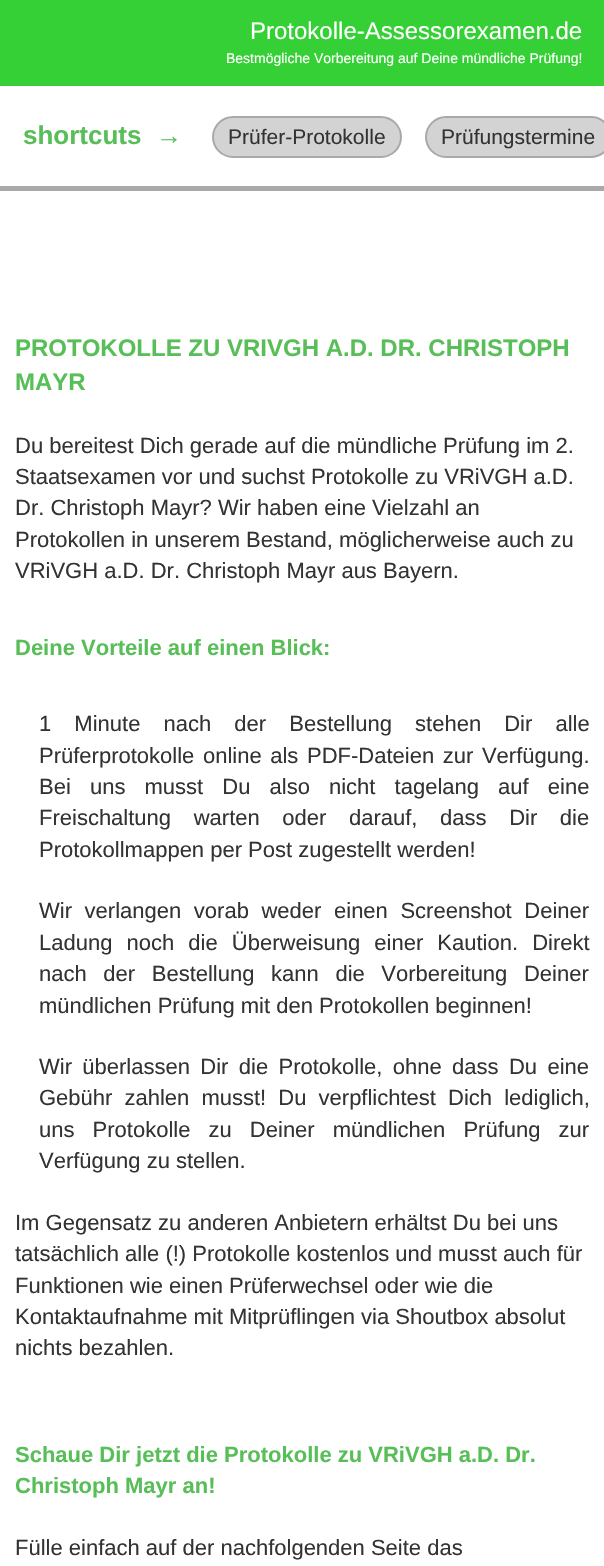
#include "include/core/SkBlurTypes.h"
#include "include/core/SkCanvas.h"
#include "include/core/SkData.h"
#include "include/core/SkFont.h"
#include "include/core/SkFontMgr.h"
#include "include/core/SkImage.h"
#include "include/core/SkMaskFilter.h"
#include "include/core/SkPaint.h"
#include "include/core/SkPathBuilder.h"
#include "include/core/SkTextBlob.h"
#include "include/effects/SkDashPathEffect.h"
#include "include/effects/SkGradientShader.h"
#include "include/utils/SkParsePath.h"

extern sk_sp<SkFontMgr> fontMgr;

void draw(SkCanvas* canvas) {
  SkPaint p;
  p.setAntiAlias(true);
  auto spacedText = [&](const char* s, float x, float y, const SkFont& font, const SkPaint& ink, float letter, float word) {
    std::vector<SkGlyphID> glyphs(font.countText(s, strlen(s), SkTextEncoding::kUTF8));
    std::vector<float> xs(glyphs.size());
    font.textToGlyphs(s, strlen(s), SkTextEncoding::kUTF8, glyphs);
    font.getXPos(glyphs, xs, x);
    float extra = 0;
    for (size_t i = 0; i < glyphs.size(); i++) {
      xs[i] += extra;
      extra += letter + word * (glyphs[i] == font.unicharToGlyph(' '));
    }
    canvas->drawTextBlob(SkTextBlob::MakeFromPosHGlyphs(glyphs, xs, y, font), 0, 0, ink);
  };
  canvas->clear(SK_ColorWHITE);
  p.setColor(SkColorSetRGB(53, 208, 53));
  canvas->drawRect(SkRect::MakeLTRB(0, 0, 604, 86), p);
  p.setColor(SkColorSetRGB(169, 169, 169));
  canvas->drawRect(SkRect::MakeLTRB(0, 186, 604, 191), p);
  p.setColor(SkColorSetRGB(211, 211, 211));
  canvas->drawRoundRect(SkRect::MakeLTRB(213, 117, 401, 157), 20, 20, p);
  p.setStyle(SkPaint::kStroke_Style);
  p.setStrokeWidth(2);
  p.setColor(SkColorSetRGB(169, 169, 169));
  canvas->drawRoundRect(SkRect::MakeLTRB(213, 117, 401, 157), 20, 20, p);
  p.setStyle(SkPaint::kFill_Style);
  p.setColor(SkColorSetRGB(211, 211, 211));
  canvas->drawRoundRect(SkRect::MakeLTRB(426, 117, 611, 157), 20, 20, p);
  p.setStyle(SkPaint::kStroke_Style);
  p.setColor(SkColorSetRGB(169, 169, 169));
  canvas->drawRoundRect(SkRect::MakeLTRB(426, 117, 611, 157), 20, 20, p);
  SkFont font1(fontMgr->matchFamilyStyle("Liberation Sans", SkFontStyle::Normal()), 24);
  font1.setSubpixel(true);
  p.setStyle(SkPaint::kFill_Style);
  p.setColor(SK_ColorWHITE);
  canvas->drawString("Protokolle-Assessorexamen.de", 250, 39, font1, p);
  SkFont font2(fontMgr->matchFamilyStyle("Liberation Sans", SkFontStyle::Normal()), 14);
  font2.setSubpixel(true);
  canvas->drawString("Bestmögliche Vorbereitung auf Deine mündliche Prüfung!", 226, 63, font2, p);
  SkFont font3(fontMgr->matchFamilyStyle("Liberation Sans", SkFontStyle::Bold()), 26);
  font3.setSubpixel(true);
  p.setColor(SkColorSetRGB(88, 190, 88));
  canvas->drawString("shortcuts  →", 23, 144, font3, p);
  SkFont font4(fontMgr->matchFamilyStyle("Liberation Sans", SkFontStyle::Normal()), 21);
  font4.setSubpixel(true);
  p.setColor(SkColorSetRGB(51, 51, 51));
  canvas->drawString("Prüfer-Protokolle", 228, 144, font4, p);
  canvas->drawString("Prüfungstermine", 441, 144, font4, p);
  SkFont font5(fontMgr->matchFamilyStyle("Liberation Sans", SkFontStyle::Bold()), 24);
  font5.setSubpixel(true);
  p.setColor(SkColorSetRGB(88, 190, 88));
  canvas->drawString("PROTOKOLLE ZU VRIVGH A.D. DR. CHRISTOPH", 15, 356, font5, p);
  canvas->drawString("MAYR", 15, 390, font5, p);
  SkFont font6(fontMgr->matchFamilyStyle("Liberation Sans", SkFontStyle::Normal()), 22);
  font6.setSubpixel(true);
  p.setColor(SkColorSetRGB(51, 51, 51));
  canvas->drawString("Du bereitest Dich gerade auf die mündliche Prüfung im 2.", 15, 453, font6, p);
  canvas->drawString("Staatsexamen vor und suchst Protokolle zu VRiVGH a.D.", 15, 484, font6, p);
  canvas->drawString("Dr. Christoph Mayr? Wir haben eine Vielzahl an", 15, 515, font6, p);
  canvas->drawString("Protokollen in unserem Bestand, möglicherweise auch zu", 15, 547, font6, p);
  canvas->drawString("VRiVGH a.D. Dr. Christoph Mayr aus Bayern.", 15, 578, font6, p);
  SkFont font7(fontMgr->matchFamilyStyle("Liberation Sans", SkFontStyle::Bold()), 22);
  font7.setSubpixel(true);
  p.setColor(SkColorSetRGB(88, 190, 88));
  canvas->drawString("Deine Vorteile auf einen Blick:", 15, 655, font7, p);
  p.setColor(SkColorSetRGB(51, 51, 51));
  spacedText("1 Minute nach der Bestellung stehen Dir alle", 39, 731, font6, p, 0, 17);
  spacedText("Prüferprotokolle online als PDF-Dateien zur Verfügung.", 39, 763, font6, p, 0, 2.5f);
  spacedText("Bei uns musst Du also nicht tagelang auf eine", 39, 794, font6, p, 0, 13);
  spacedText("Freischaltung warten oder darauf, dass Dir die", 39, 825, font6, p, 0, 16.5f);
  canvas->drawString("Protokollmappen per Post zugestellt werden!", 39, 857, font6, p);
  spacedText("Wir verlangen vorab weder einen Screenshot Deiner", 39, 918, font6, p, 0, 6.5f);
  spacedText("Ladung noch die Überweisung einer Kaution. Direkt", 39, 950, font6, p, 0, 8);
  spacedText("nach der Bestellung kann die Vorbereitung Deiner", 39, 981, font6, p, 0, 10.5f);
  canvas->drawString("mündlichen Prüfung mit den Protokollen beginnen!", 39, 1013, font6, p);
  spacedText("Wir überlassen Dir die Protokolle, ohne dass Du eine", 39, 1074, font6, p, 0, 4.25f);
  spacedText("Gebühr zahlen musst! Du verpflichtest Dich lediglich,", 39, 1105, font6, p, 0, 6);
  spacedText("uns Protokolle zu Deiner mündlichen Prüfung zur", 39, 1137, font6, p, 0, 12);
  canvas->drawString("Verfügung zu stellen.", 39, 1168, font6, p);
  canvas->drawString("Im Gegensatz zu anderen Anbietern erhältst Du bei uns", 15, 1230, font6, p);
  canvas->drawString("tatsächlich alle (!) Protokolle kostenlos und musst auch für", 15, 1261, font6, p);
  canvas->drawString("Funktionen wie einen Prüferwechsel oder wie die", 15, 1293, font6, p);
  canvas->drawString("Kontaktaufnahme mit Mitprüflingen via Shoutbox absolut", 15, 1324, font6, p);
  canvas->drawString("nichts bezahlen.", 15, 1355, font6, p);
  p.setColor(SkColorSetRGB(88, 190, 88));
  canvas->drawString("Schaue Dir jetzt die Protokolle zu VRiVGH a.D. Dr.", 15, 1462, font7, p);
  canvas->drawString("Christoph Mayr an!", 15, 1493, font7, p);
  p.setColor(SkColorSetRGB(51, 51, 51));
  canvas->drawString("Fülle einfach auf der nachfolgenden Seite das", 15, 1555, font6, p);
}
